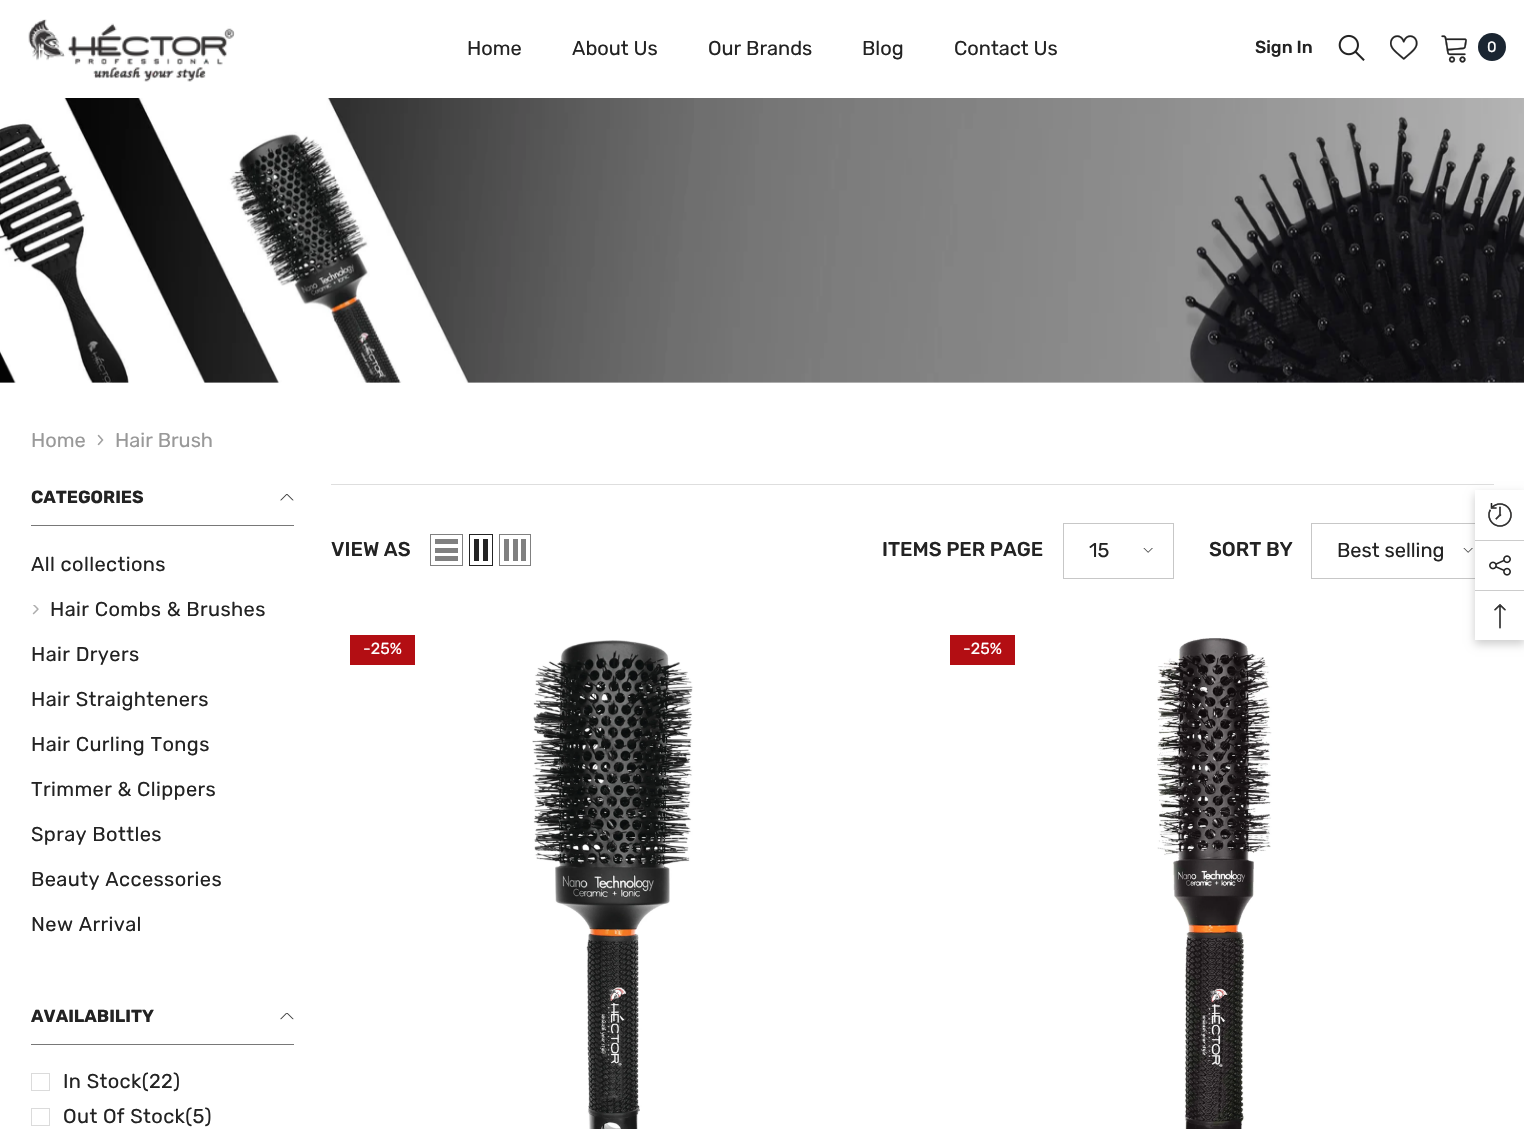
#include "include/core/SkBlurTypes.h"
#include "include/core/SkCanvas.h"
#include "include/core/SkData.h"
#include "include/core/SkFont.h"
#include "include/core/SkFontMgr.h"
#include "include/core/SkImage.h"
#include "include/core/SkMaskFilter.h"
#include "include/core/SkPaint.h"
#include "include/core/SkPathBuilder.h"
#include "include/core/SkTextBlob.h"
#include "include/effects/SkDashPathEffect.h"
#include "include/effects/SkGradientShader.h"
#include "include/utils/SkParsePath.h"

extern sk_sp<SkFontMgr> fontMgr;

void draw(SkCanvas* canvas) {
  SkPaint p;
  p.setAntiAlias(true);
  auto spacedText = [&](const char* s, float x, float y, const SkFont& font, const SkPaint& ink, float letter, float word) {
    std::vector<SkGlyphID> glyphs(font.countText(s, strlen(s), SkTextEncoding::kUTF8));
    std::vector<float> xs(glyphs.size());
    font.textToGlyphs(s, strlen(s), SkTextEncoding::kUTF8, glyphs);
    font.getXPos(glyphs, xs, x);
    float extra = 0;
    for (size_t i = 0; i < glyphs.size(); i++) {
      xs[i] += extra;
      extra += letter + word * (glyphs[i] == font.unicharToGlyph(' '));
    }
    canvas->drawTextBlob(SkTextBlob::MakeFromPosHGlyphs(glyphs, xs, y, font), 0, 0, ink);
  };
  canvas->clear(SK_ColorWHITE);
  canvas->drawImageRect(SkImages::DeferredFromEncodedData(SkData::MakeFromFileName("images/1.png")), SkRect::MakeLTRB(28, 19, 235, 82), SkSamplingOptions());
  canvas->drawImageRect(SkImages::DeferredFromEncodedData(SkData::MakeFromFileName("images/2.png")), SkRect::MakeLTRB(1338, 34, 1365, 61), SkSamplingOptions());
  canvas->drawImageRect(SkImages::DeferredFromEncodedData(SkData::MakeFromFileName("images/3.png")), SkRect::MakeLTRB(1390, 35, 1418, 60), SkSamplingOptions());
  canvas->drawImageRect(SkImages::DeferredFromEncodedData(SkData::MakeFromFileName("images/4.png")), SkRect::MakeLTRB(1441, 35, 1467, 63), SkSamplingOptions());
  p.setColor(SkColorSetRGB(26, 37, 49));
  canvas->drawCircle(1492, 47, 14, p);
  canvas->drawImageRect(SkImages::DeferredFromEncodedData(SkData::MakeFromFileName("images/5.png")), SkRect::MakeLTRB(0, 98, 1524, 383), SkSamplingOptions());
  canvas->drawImageRect(SkImages::DeferredFromEncodedData(SkData::MakeFromFileName("images/6.png")), SkRect::MakeLTRB(97, 434, 104, 446), SkSamplingOptions());
  p.setColor(SkColorSetRGB(120, 120, 120));
  canvas->drawRect(SkRect::MakeLTRB(31, 525, 294, 526), p);
  canvas->drawImageRect(SkImages::DeferredFromEncodedData(SkData::MakeFromFileName("images/7.png")), SkRect::MakeLTRB(280, 494, 294, 501), SkSamplingOptions());
  canvas->drawImageRect(SkImages::DeferredFromEncodedData(SkData::MakeFromFileName("images/8.png")), SkRect::MakeLTRB(32, 605, 39, 615), SkSamplingOptions());
  canvas->drawRect(SkRect::MakeLTRB(31, 1044, 294, 1045), p);
  canvas->drawImageRect(SkImages::DeferredFromEncodedData(SkData::MakeFromFileName("images/9.png")), SkRect::MakeLTRB(280, 1013, 294, 1020), SkSamplingOptions());
  p.setStyle(SkPaint::kStroke_Style);
  p.setStrokeWidth(1);
  p.setColor(SkColorSetRGB(219, 219, 219));
  canvas->drawRect(SkRect::MakeLTRB(31.5f, 1073.5f, 49.5f, 1090.5f), p);
  canvas->drawRect(SkRect::MakeLTRB(31.5f, 1108.5f, 49.5f, 1125.5f), p);
  p.setStyle(SkPaint::kFill_Style);
  p.setColor(SkColorSetRGB(222, 222, 222));
  canvas->drawRect(SkRect::MakeLTRB(331, 484, 1494, 485), p);
  p.setStyle(SkPaint::kStroke_Style);
  p.setColor(SkColorSetRGB(128, 128, 128));
  canvas->drawRect(SkRect::MakeLTRB(430.5f, 534.5f, 462.5f, 565.5f), p);
  p.setStyle(SkPaint::kFill_Style);
  canvas->drawRect(SkRect::MakeLTRB(435, 556, 458, 561), p);
  canvas->drawRect(SkRect::MakeLTRB(435, 548, 458, 553), p);
  canvas->drawRect(SkRect::MakeLTRB(435, 539, 458, 544), p);
  p.setStyle(SkPaint::kStroke_Style);
  p.setColor(SkColorSetRGB(35, 35, 35));
  canvas->drawRect(SkRect::MakeLTRB(469.5f, 534.5f, 492.5f, 565.5f), p);
  p.setStyle(SkPaint::kFill_Style);
  canvas->drawRect(SkRect::MakeLTRB(483, 539, 488, 561), p);
  canvas->drawRect(SkRect::MakeLTRB(474, 539, 479, 561), p);
  p.setStyle(SkPaint::kStroke_Style);
  p.setColor(SkColorSetRGB(128, 128, 128));
  canvas->drawRect(SkRect::MakeLTRB(499.5f, 534.5f, 530.5f, 565.5f), p);
  p.setStyle(SkPaint::kFill_Style);
  canvas->drawRect(SkRect::MakeLTRB(521, 539, 526, 561), p);
  canvas->drawRect(SkRect::MakeLTRB(513, 539, 518, 561), p);
  canvas->drawRect(SkRect::MakeLTRB(504, 539, 509, 561), p);
  p.setStyle(SkPaint::kStroke_Style);
  p.setColor(SkColorSetRGB(199, 199, 199));
  canvas->drawRect(SkRect::MakeLTRB(1063.5f, 523.5f, 1173.5f, 578.5f), p);
  canvas->drawImageRect(SkImages::DeferredFromEncodedData(SkData::MakeFromFileName("images/10.png")), SkRect::MakeLTRB(1143, 548, 1153, 553), SkSamplingOptions());
  canvas->drawRect(SkRect::MakeLTRB(1311.5f, 523.5f, 1493.5f, 578.5f), p);
  canvas->drawImageRect(SkImages::DeferredFromEncodedData(SkData::MakeFromFileName("images/10.png")), SkRect::MakeLTRB(1463, 548, 1473, 553), SkSamplingOptions());
  p.setStyle(SkPaint::kFill_Style);
  p.setColor(SkColorSetRGB(179, 14, 19));
  canvas->drawRect(SkRect::MakeLTRB(350, 635, 415, 665), p);
  canvas->drawImageRect(SkImages::DeferredFromEncodedData(SkData::MakeFromFileName("images/11.png")), SkRect::MakeLTRB(532, 640, 693, 1129), SkSamplingOptions());
  canvas->drawRect(SkRect::MakeLTRB(950, 635, 1015, 665), p);
  canvas->drawImageRect(SkImages::DeferredFromEncodedData(SkData::MakeFromFileName("images/12.png")), SkRect::MakeLTRB(1157, 638, 1272, 1129), SkSamplingOptions());
  p.setColor(SkColorSetARGB(51, 0, 0, 0));
  p.setMaskFilter(SkMaskFilter::MakeBlur(kNormal_SkBlurStyle, 4.5f));
  canvas->drawRect(SkRect::MakeLTRB(1475, 494, 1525, 644), p);
  p.setMaskFilter(nullptr);
  p.setColor(SK_ColorWHITE);
  canvas->drawRect(SkRect::MakeLTRB(1475, 490, 1524, 640), p);
  canvas->drawImageRect(SkImages::DeferredFromEncodedData(SkData::MakeFromFileName("images/13.png")), SkRect::MakeLTRB(1488, 503, 1512, 527), SkSamplingOptions());
  p.setColor(SkColorSetRGB(204, 204, 204));
  canvas->drawRect(SkRect::MakeLTRB(1475, 540, 1524, 541), p);
  canvas->drawImageRect(SkImages::DeferredFromEncodedData(SkData::MakeFromFileName("images/14.png")), SkRect::MakeLTRB(1489, 555, 1511, 576), SkSamplingOptions());
  canvas->drawRect(SkRect::MakeLTRB(1475, 590, 1524, 591), p);
  canvas->drawImageRect(SkImages::DeferredFromEncodedData(SkData::MakeFromFileName("images/15.png")), SkRect::MakeLTRB(1494, 604, 1506, 629), SkSamplingOptions());
  SkFont font1(fontMgr->matchFamilyStyle("Rubik", SkFontStyle::Normal()), 20);
  font1.setSubpixel(true);
  p.setColor(SkColorSetRGB(35, 35, 35));
  canvas->drawString("Home", 467, 55, font1, p);
  canvas->drawString("About Us", 572, 55, font1, p);
  canvas->drawString("Our Brands", 708, 55, font1, p);
  canvas->drawString("Blog", 862, 55, font1, p);
  canvas->drawString("Contact Us", 954, 55, font1, p);
  SkFont font2(fontMgr->matchFamilyStyle("Rubik", SkFontStyle(500, SkFontStyle::kNormal_Width, SkFontStyle::kUpright_Slant)), 17.5f);
  font2.setSubpixel(true);
  canvas->drawString("Sign In", 1255, 53, font2, p);
  SkFont font3(fontMgr->matchFamilyStyle("Rubik", SkFontStyle::Normal()), 15);
  font3.setSubpixel(true);
  p.setColor(SK_ColorWHITE);
  canvas->drawString("0", 1487, 52, font3, p);
  p.setColor(SkColorSetRGB(153, 153, 153));
  canvas->drawString("Home", 31, 447, font1, p);
  canvas->drawString("Hair Brush", 115, 447, font1, p);
  SkFont font4(fontMgr->matchFamilyStyle("Rubik", SkFontStyle::Bold()), 17.5f);
  font4.setSubpixel(true);
  p.setColor(SkColorSetRGB(35, 35, 35));
  canvas->drawString("CATEGORIES", 31, 503, font4, p);
  spacedText("All collections", 31, 571, font1, p, 0.4f, 0);
  spacedText("Hair Combs & Brushes", 50, 616, font1, p, 0.4f, 0);
  spacedText("Hair Dryers", 31, 661, font1, p, 0.4f, 0);
  spacedText("Hair Straighteners", 31, 706, font1, p, 0.4f, 0);
  spacedText("Hair Curling Tongs", 31, 751, font1, p, 0.4f, 0);
  spacedText("Trimmer & Clippers", 31, 796, font1, p, 0.4f, 0);
  spacedText("Spray Bottles", 31, 841, font1, p, 0.4f, 0);
  spacedText("Beauty Accessories", 31, 886, font1, p, 0.4f, 0);
  spacedText("New Arrival", 31, 931, font1, p, 0.4f, 0);
  canvas->drawString("AVAILABILITY", 31, 1022, font4, p);
  spacedText("In Stock(22)", 63, 1088, font1, p, 0.4f, 0);
  spacedText("Out Of Stock(5)", 63, 1123, font1, p, 0.4f, 0);
  SkFont font5(fontMgr->matchFamilyStyle("Rubik", SkFontStyle(500, SkFontStyle::kNormal_Width, SkFontStyle::kUpright_Slant)), 20);
  font5.setSubpixel(true);
  canvas->drawString("VIEW AS", 331, 556, font5, p);
  canvas->drawString("ITEMS PER PAGE", 882, 556, font5, p);
  canvas->drawString("15", 1089, 557, font1, p);
  canvas->drawString("SORT BY", 1209, 556, font5, p);
  canvas->drawString("Best selling", 1337, 557, font1, p);
  SkFont font6(fontMgr->matchFamilyStyle("Rubik", SkFontStyle::Normal()), 16);
  font6.setSubpixel(true);
  p.setColor(SK_ColorWHITE);
  canvas->drawString("-25%", 363, 654, font6, p);
  canvas->drawString("-25%", 963, 654, font6, p);
}
